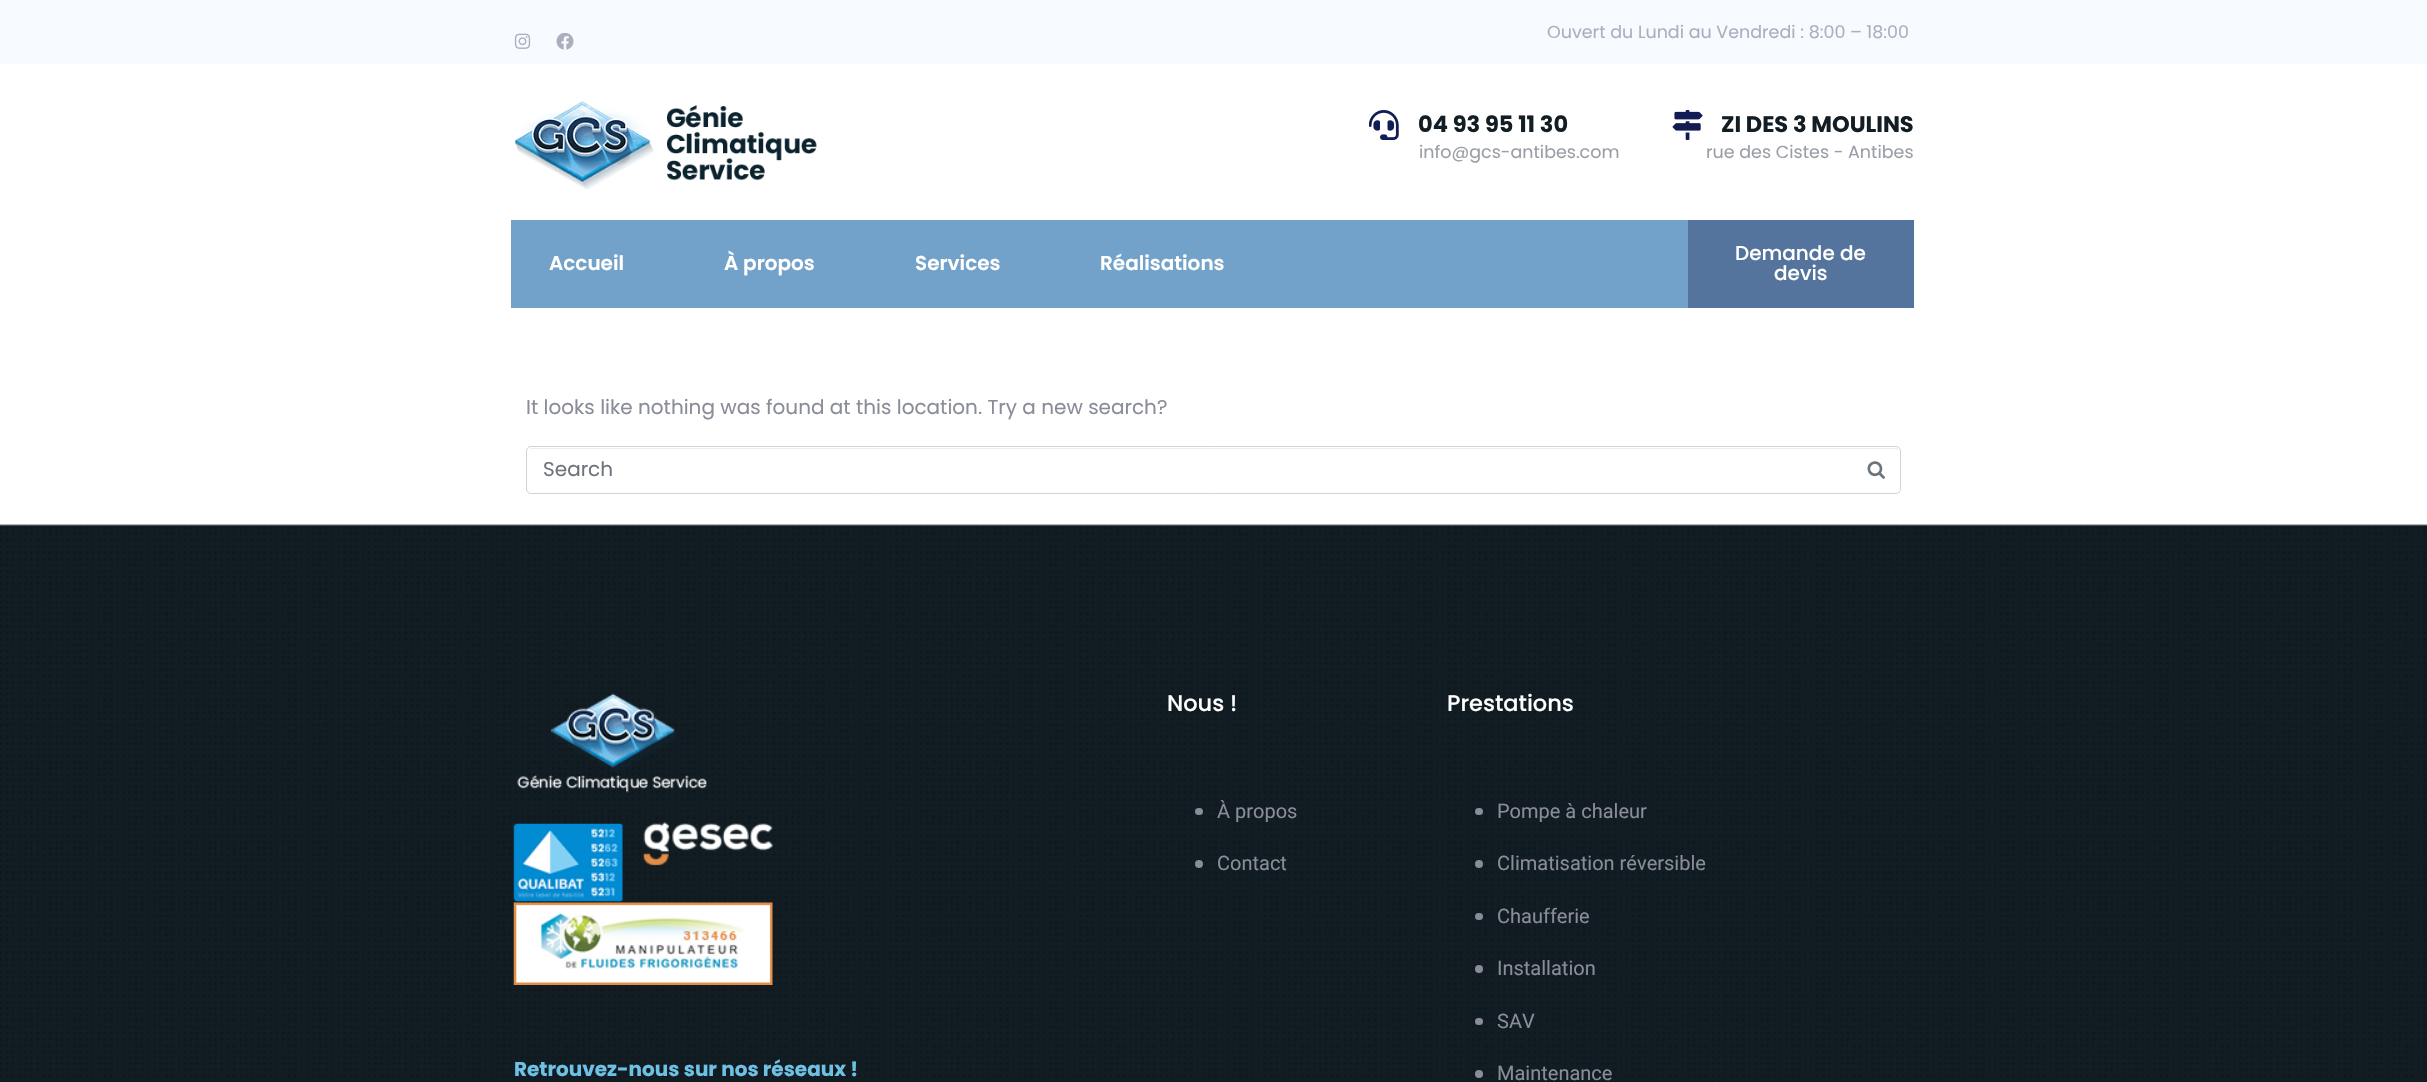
#include "include/core/SkBlurTypes.h"
#include "include/core/SkCanvas.h"
#include "include/core/SkData.h"
#include "include/core/SkFont.h"
#include "include/core/SkFontMgr.h"
#include "include/core/SkImage.h"
#include "include/core/SkMaskFilter.h"
#include "include/core/SkPaint.h"
#include "include/core/SkPathBuilder.h"
#include "include/core/SkTextBlob.h"
#include "include/effects/SkDashPathEffect.h"
#include "include/effects/SkGradientShader.h"
#include "include/utils/SkParsePath.h"

extern sk_sp<SkFontMgr> fontMgr;

void draw(SkCanvas* canvas) {
  SkPaint p;
  p.setAntiAlias(true);
  canvas->clear(SK_ColorWHITE);
  p.setColor(SkColorSetRGB(247, 250, 255));
  canvas->drawRect(SkRect::MakeLTRB(0, 0, 2427, 64), p);
  canvas->drawImageRect(SkImages::DeferredFromEncodedData(SkData::MakeFromFileName("images/1.png")), SkRect::MakeLTRB(514, 33, 531, 49), SkSamplingOptions());
  canvas->drawImageRect(SkImages::DeferredFromEncodedData(SkData::MakeFromFileName("images/2.png")), SkRect::MakeLTRB(556, 33, 574, 50), SkSamplingOptions());
  canvas->drawImageRect(SkImages::DeferredFromEncodedData(SkData::MakeFromFileName("images/3.png")), SkRect::MakeLTRB(514, 101, 817, 190), SkSamplingOptions());
  canvas->drawImageRect(SkImages::DeferredFromEncodedData(SkData::MakeFromFileName("images/4.png")), SkRect::MakeLTRB(1369, 110, 1399, 140), SkSamplingOptions());
  canvas->drawImageRect(SkImages::DeferredFromEncodedData(SkData::MakeFromFileName("images/5.png")), SkRect::MakeLTRB(1672, 110, 1703, 140), SkSamplingOptions());
  p.setColor(SkColorSetRGB(114, 161, 201));
  canvas->drawRect(SkRect::MakeLTRB(511, 220, 1688, 308), p);
  p.setColor(SkColorSetRGB(84, 116, 157));
  canvas->drawRect(SkRect::MakeLTRB(1688, 220, 1914, 308), p);
  p.setColor(SkColorSetRGB(236, 236, 236));
  canvas->drawPath(SkPathBuilder().moveTo(531, 449).lineTo(1896, 449).cubicTo(1898, 449, 1900, 450, 1900, 452).cubicTo(1900, 450, 1898, 448, 1896, 448).lineTo(532, 448).cubicTo(531, 448, 529, 449, 529, 450).close().detach(), p);
  p.setStyle(SkPaint::kStroke_Style);
  p.setStrokeWidth(1);
  p.setColor(SkColorSetRGB(206, 212, 218));
  canvas->drawRoundRect(SkRect::MakeLTRB(526.5f, 446.5f, 1900.5f, 493.5f), 4.5f, 4.5f, p);
  canvas->drawImageRect(SkImages::DeferredFromEncodedData(SkData::MakeFromFileName("images/6.png")), SkRect::MakeLTRB(1867, 461, 1885, 479), SkSamplingOptions());
  canvas->drawImageRect(SkImages::DeferredFromEncodedData(SkData::MakeFromFileName("images/7.png")), SkRect::MakeLTRB(0, 524, 2427, 1082), SkSamplingOptions());
  p.setStyle(SkPaint::kFill_Style);
  p.setColor(SkColorSetRGB(138, 140, 153));
  canvas->drawRoundRect(SkRect::MakeLTRB(1195, 808, 1203, 815), 3.5f, 3.5f, p);
  canvas->drawCircle(1199, 864, 4, p);
  canvas->drawRoundRect(SkRect::MakeLTRB(1475, 808, 1483, 815), 3.5f, 3.5f, p);
  canvas->drawCircle(1479, 864, 4, p);
  canvas->drawRoundRect(SkRect::MakeLTRB(1475, 913, 1483, 920), 3.5f, 3.5f, p);
  canvas->drawCircle(1479, 969, 4, p);
  canvas->drawRoundRect(SkRect::MakeLTRB(1475, 1018, 1483, 1025), 3.5f, 3.5f, p);
  canvas->drawCircle(1479, 1074, 4, p);
  canvas->drawImageRect(SkImages::DeferredFromEncodedData(SkData::MakeFromFileName("images/8.png")), SkRect::MakeLTRB(517, 693, 707, 793), SkSamplingOptions());
  canvas->drawImageRect(SkImages::DeferredFromEncodedData(SkData::MakeFromFileName("images/9.png")), SkRect::MakeLTRB(513, 822, 773, 985), SkSamplingOptions());
  SkFont font1(fontMgr->matchFamilyStyle("Poppins", SkFontStyle::Normal()), 17.5f);
  font1.setSubpixel(true);
  p.setColor(SkColorSetRGB(171, 174, 190));
  canvas->drawString("Ouvert du Lundi au Vendredi : 8:00 – 18:00", 1547, 38, font1, p);
  SkFont font2(fontMgr->matchFamilyStyle("Poppins", SkFontStyle::Bold()), 22.5f);
  font2.setSubpixel(true);
  p.setColor(SkColorSetRGB(19, 30, 36));
  canvas->drawString("04 93 95 11 30", 1418, 132, font2, p);
  p.setColor(SkColorSetRGB(155, 158, 168));
  canvas->drawString("info@gcs-antibes.com", 1419, 158, font1, p);
  p.setColor(SkColorSetRGB(19, 30, 36));
  canvas->drawString("ZI DES 3 MOULINS", 1721, 132, font2, p);
  p.setColor(SkColorSetRGB(155, 158, 168));
  canvas->drawString("rue des Cistes - Antibes", 1706, 158, font1, p);
  SkFont font3(fontMgr->matchFamilyStyle("Poppins", SkFontStyle(600, SkFontStyle::kNormal_Width, SkFontStyle::kUpright_Slant)), 20);
  font3.setSubpixel(true);
  p.setColor(SK_ColorWHITE);
  canvas->drawString("Accueil", 549, 270, font3, p);
  canvas->drawString("À propos", 724, 270, font3, p);
  canvas->drawString("Services", 915, 270, font3, p);
  canvas->drawString("Réalisations", 1100, 270, font3, p);
  SkFont font4(fontMgr->matchFamilyStyle("Poppins", SkFontStyle(500, SkFontStyle::kNormal_Width, SkFontStyle::kUpright_Slant)), 20);
  font4.setSubpixel(true);
  canvas->drawString("Demande de", 1735, 260, font4, p);
  canvas->drawString("devis", 1774, 280, font4, p);
  SkFont font5(fontMgr->matchFamilyStyle("Poppins", SkFontStyle::Normal()), 20);
  font5.setSubpixel(true);
  p.setColor(SkColorSetRGB(138, 140, 153));
  canvas->drawString("It looks like nothing was found at this location. Try a new search?", 526, 414, font5, p);
  p.setColor(SkColorSetRGB(108, 117, 125));
  canvas->drawString("Search", 543, 476, font5, p);
  SkFont font6(fontMgr->matchFamilyStyle("Poppins", SkFontStyle(500, SkFontStyle::kNormal_Width, SkFontStyle::kUpright_Slant)), 22.5f);
  font6.setSubpixel(true);
  p.setColor(SK_ColorWHITE);
  canvas->drawString("Nous !", 1167, 711, font6, p);
  SkFont font7(fontMgr->matchFamilyStyle("Roboto", SkFontStyle::Normal()), 20);
  font7.setSubpixel(true);
  p.setColor(SkColorSetRGB(138, 140, 153));
  canvas->drawString("À propos", 1217, 818, font7, p);
  canvas->drawString("Contact", 1217, 870, font7, p);
  p.setColor(SK_ColorWHITE);
  canvas->drawString("Prestations", 1447, 711, font6, p);
  p.setColor(SkColorSetRGB(138, 140, 153));
  canvas->drawString("Pompe à chaleur", 1497, 818, font7, p);
  canvas->drawString("Climatisation réversible", 1497, 870, font7, p);
  canvas->drawString("Chaufferie", 1497, 923, font7, p);
  canvas->drawString("Installation", 1497, 975, font7, p);
  canvas->drawString("SAV", 1497, 1028, font7, p);
  canvas->drawString("Maintenance", 1497, 1080, font7, p);
  SkFont font8(fontMgr->matchFamilyStyle("Poppins", SkFontStyle::Bold()), 20);
  font8.setSubpixel(true);
  p.setColor(SkColorSetRGB(110, 193, 228));
  canvas->drawString("Retrouvez-nous sur nos réseaux !", 514, 1076, font8, p);
}
